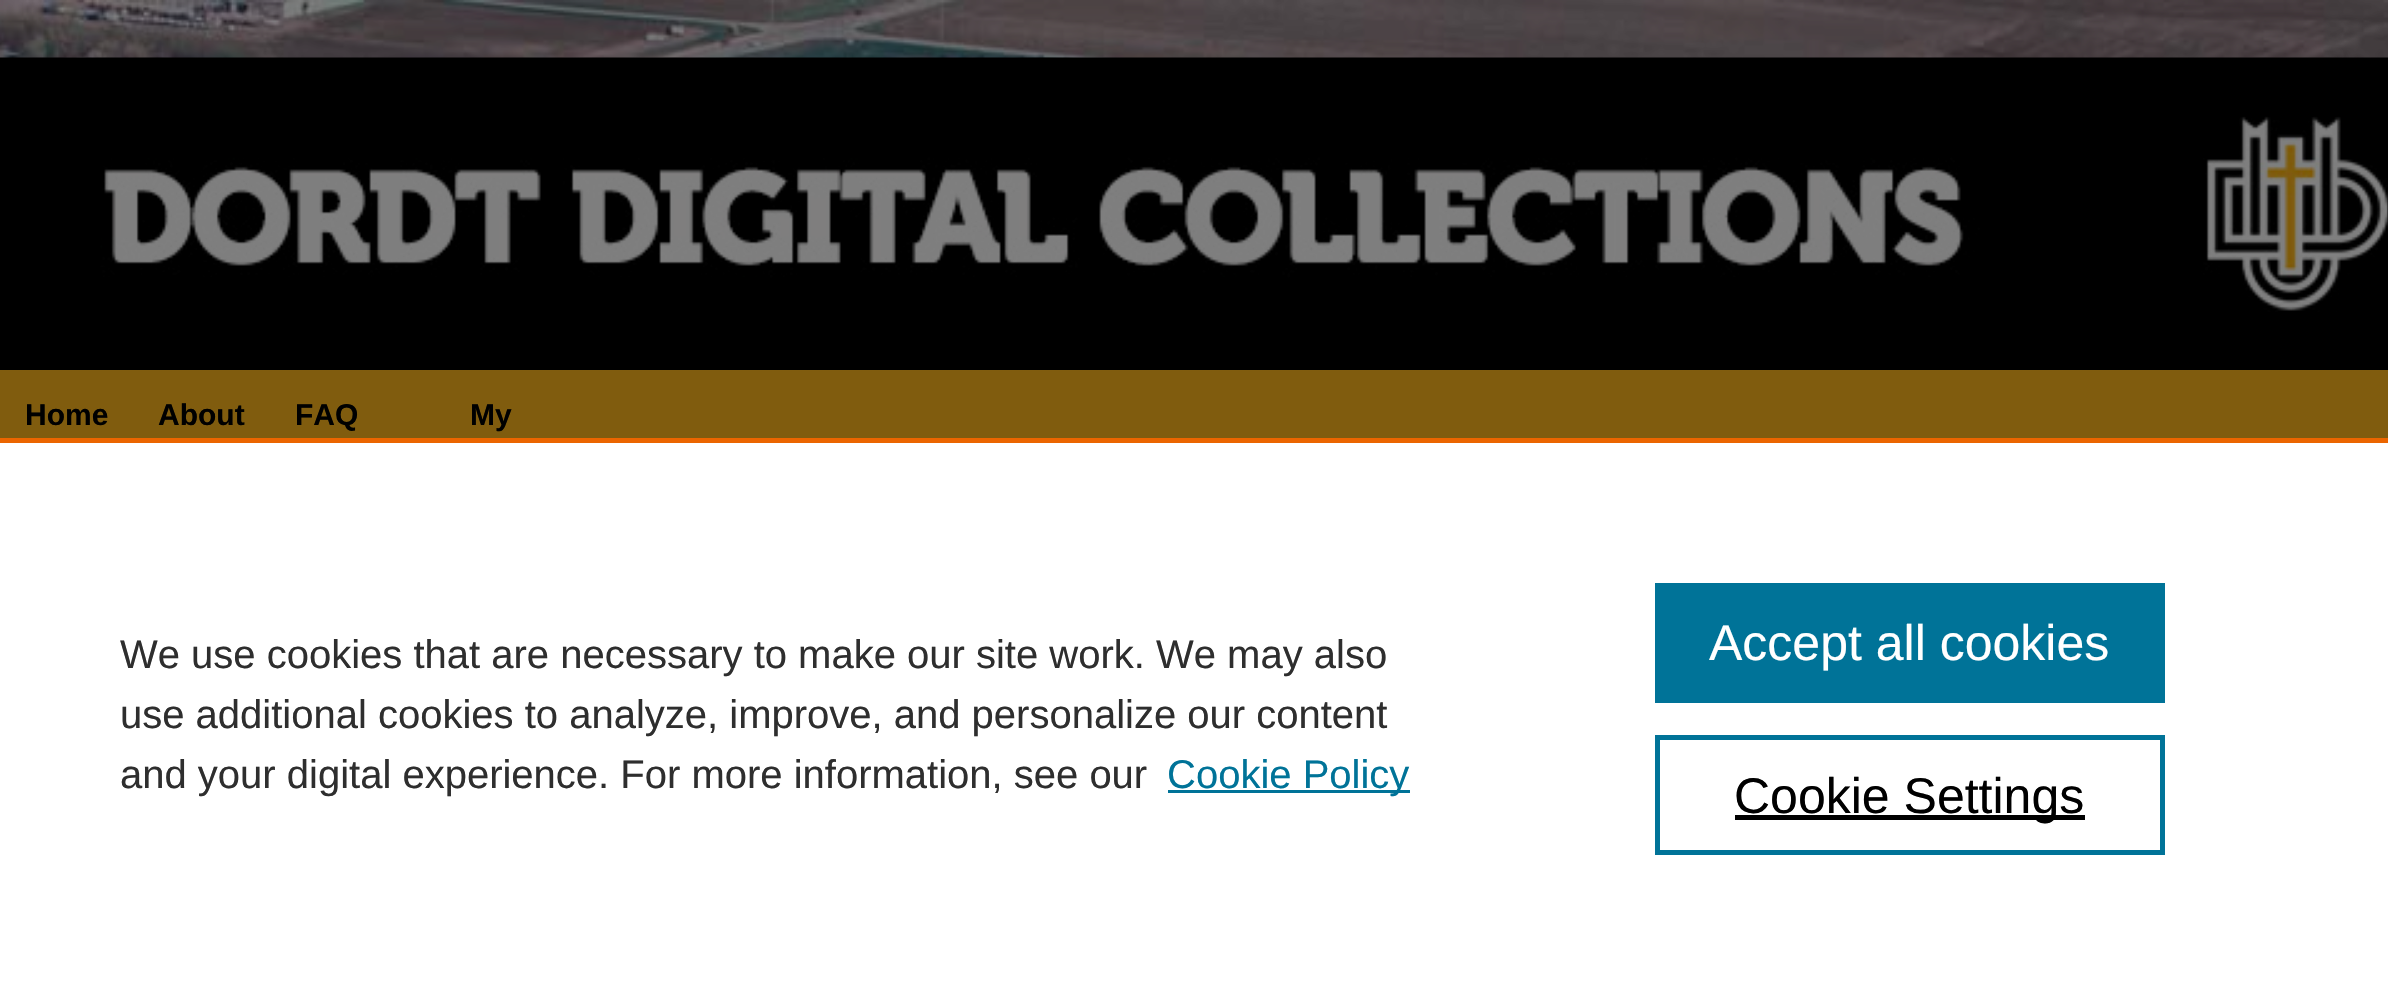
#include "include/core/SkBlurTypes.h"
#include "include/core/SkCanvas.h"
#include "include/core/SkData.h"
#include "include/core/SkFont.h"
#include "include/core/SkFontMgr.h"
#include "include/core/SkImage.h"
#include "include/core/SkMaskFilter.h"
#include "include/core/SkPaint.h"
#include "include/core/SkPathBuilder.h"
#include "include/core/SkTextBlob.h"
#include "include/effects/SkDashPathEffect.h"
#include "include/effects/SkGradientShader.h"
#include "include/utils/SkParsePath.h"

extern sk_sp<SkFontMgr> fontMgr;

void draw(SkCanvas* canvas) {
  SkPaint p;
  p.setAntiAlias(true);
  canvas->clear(SK_ColorWHITE);
  canvas->drawImageRect(SkImages::DeferredFromEncodedData(SkData::MakeFromFileName("images/1.png")), SkRect::MakeLTRB(0, 0, 2388, 58), SkSamplingOptions());
  p.setColor(SK_ColorBLACK);
  canvas->drawRect(SkRect::MakeLTRB(0, 312, 2388, 370), p);
  canvas->drawImageRect(SkImages::DeferredFromEncodedData(SkData::MakeFromFileName("images/2.png")), SkRect::MakeLTRB(0, 57, 2388, 312), SkSamplingOptions());
  p.setColor(SkColorSetRGB(128, 92, 14));
  canvas->drawRect(SkRect::MakeLTRB(0, 370, 2388, 438), p);
  p.setColor(SkColorSetRGB(235, 101, 0));
  canvas->drawRect(SkRect::MakeLTRB(0, 438, 2388, 443), p);
  p.setColor(SkColorSetRGB(0, 115, 152));
  canvas->drawRect(SkRect::MakeLTRB(1168, 790, 1410, 793), p);
  canvas->drawRect(SkRect::MakeLTRB(1655, 583, 2165, 703), p);
  p.setStyle(SkPaint::kStroke_Style);
  p.setStrokeWidth(5);
  canvas->drawRect(SkRect::MakeLTRB(1657.5f, 737.5f, 2162.5f, 852.5f), p);
  p.setStyle(SkPaint::kFill_Style);
  p.setColor(SK_ColorBLACK);
  canvas->drawRect(SkRect::MakeLTRB(1735, 815, 2085, 820), p);
  SkFont font1(fontMgr->matchFamilyStyle("Liberation Sans", SkFontStyle::Bold()), 30);
  font1.setSubpixel(true);
  canvas->drawString("Home", 25, 425, font1, p);
  canvas->drawString("About", 158, 425, font1, p);
  canvas->drawString("FAQ", 295, 425, font1, p);
  canvas->drawString("My", 470, 425, font1, p);
  SkFont font2(fontMgr->matchFamilyStyle("Liberation Sans", SkFontStyle::Normal()), 40);
  font2.setSubpixel(true);
  p.setColor(SkColorSetRGB(46, 46, 46));
  canvas->drawString("We use cookies that are necessary to make our site work. We may also", 120, 668, font2, p);
  canvas->drawString("use additional cookies to analyze, improve, and personalize our content", 120, 728, font2, p);
  canvas->drawString("and your digital experience. For more information, see our", 120, 788, font2, p);
  p.setColor(SkColorSetRGB(0, 115, 152));
  canvas->drawString("Cookie Policy", 1167, 788, font2, p);
  SkFont font3(fontMgr->matchFamilyStyle("Liberation Sans", SkFontStyle::Normal()), 50);
  font3.setSubpixel(true);
  p.setColor(SK_ColorWHITE);
  canvas->drawString("Accept all cookies", 1709, 660, font3, p);
  p.setColor(SK_ColorBLACK);
  canvas->drawString("Cookie Settings", 1734, 813, font3, p);
}
